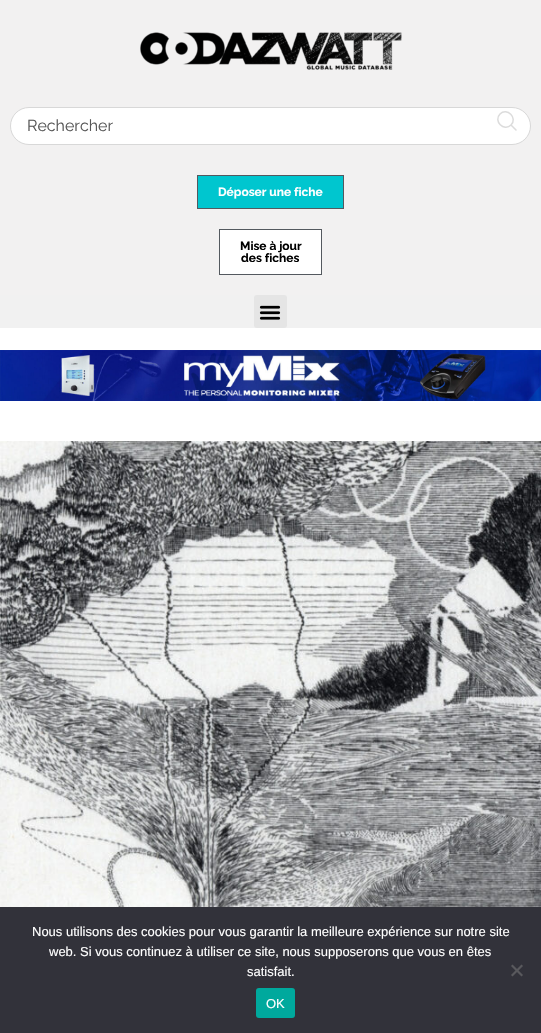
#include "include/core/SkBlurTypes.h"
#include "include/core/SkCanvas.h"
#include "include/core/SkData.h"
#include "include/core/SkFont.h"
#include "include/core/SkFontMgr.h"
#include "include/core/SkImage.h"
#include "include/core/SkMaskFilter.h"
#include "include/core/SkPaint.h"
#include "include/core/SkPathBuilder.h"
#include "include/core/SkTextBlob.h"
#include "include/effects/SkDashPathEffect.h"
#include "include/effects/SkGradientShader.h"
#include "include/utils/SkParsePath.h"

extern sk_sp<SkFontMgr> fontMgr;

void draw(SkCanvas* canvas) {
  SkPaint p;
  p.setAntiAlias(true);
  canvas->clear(SK_ColorWHITE);
  p.setColor(SkColorSetRGB(242, 241, 241));
  canvas->drawRect(SkRect::MakeLTRB(0, 0, 541, 295), p);
  canvas->drawImageRect(SkImages::DeferredFromEncodedData(SkData::MakeFromFileName("images/1.png")), SkRect::MakeLTRB(140, 32, 402, 70), SkSamplingOptions());
  p.setColor(SK_ColorWHITE);
  canvas->drawRoundRect(SkRect::MakeLTRB(10.5f, 107.5f, 530.5f, 144.5f), 18.5f, 18.5f, p);
  p.setStyle(SkPaint::kStroke_Style);
  p.setStrokeWidth(1);
  p.setColor(SkColorSetRGB(216, 216, 216));
  canvas->drawRoundRect(SkRect::MakeLTRB(10.5f, 107.5f, 530.5f, 144.5f), 18.5f, 18.5f, p);
  p.setStrokeWidth(1.5f);
  p.setStrokeCap(SkPaint::kRound_Cap);
  p.setStrokeJoin(SkPaint::kRound_Join);
  p.setColor(SkColorSetRGB(220, 220, 220));
  canvas->drawPath(SkPathBuilder().moveTo(516, 130).lineTo(511, 125).moveTo(511, 125).cubicTo(518, 118, 507, 107, 500, 114).cubicTo(493, 121, 504, 132, 511, 125).close().detach(), p);
  p.setStyle(SkPaint::kFill_Style);
  p.setColor(SkColorSetRGB(0, 198, 207));
  canvas->drawRect(SkRect::MakeLTRB(197.5f, 175.5f, 343.5f, 208.5f), p);
  p.setStyle(SkPaint::kStroke_Style);
  p.setStrokeWidth(1);
  p.setStrokeCap(SkPaint::kButt_Cap);
  p.setStrokeJoin(SkPaint::kMiter_Join);
  p.setColor(SkColorSetRGB(84, 89, 95));
  canvas->drawRect(SkRect::MakeLTRB(197.5f, 175.5f, 343.5f, 208.5f), p);
  p.setStyle(SkPaint::kFill_Style);
  p.setColor(SK_ColorWHITE);
  canvas->drawRect(SkRect::MakeLTRB(219.5f, 229.5f, 321.5f, 274.5f), p);
  p.setStyle(SkPaint::kStroke_Style);
  p.setColor(SkColorSetRGB(84, 89, 95));
  canvas->drawRect(SkRect::MakeLTRB(219.5f, 229.5f, 321.5f, 274.5f), p);
  p.setStyle(SkPaint::kFill_Style);
  p.setColor(SkColorSetRGB(241, 241, 241));
  canvas->drawRect(SkRect::MakeLTRB(0, 295, 541, 328), p);
  p.setColor(SkColorSetRGB(229, 229, 229));
  canvas->drawRoundRect(SkRect::MakeLTRB(254, 295, 287, 328), 3, 3, p);
  canvas->drawImageRect(SkImages::DeferredFromEncodedData(SkData::MakeFromFileName("images/2.png")), SkRect::MakeLTRB(259, 305, 281, 320), SkSamplingOptions());
  canvas->drawImageRect(SkImages::DeferredFromEncodedData(SkData::MakeFromFileName("images/3.png")), SkRect::MakeLTRB(0, 350, 541, 401), SkSamplingOptions());
  canvas->drawImageRect(SkImages::DeferredFromEncodedData(SkData::MakeFromFileName("images/4.png")), SkRect::MakeLTRB(0, 441, 541, 907), SkSamplingOptions());
  p.setColor(SkColorSetRGB(50, 50, 58));
  canvas->drawRect(SkRect::MakeLTRB(0, 907, 541, 1033), p);
  p.setColor(SkColorSetRGB(89, 89, 93));
  canvas->drawPath(SkPathBuilder().moveTo(521.5f, 964.5f).lineTo(523, 966).lineTo(512.5f, 976.5f).lineTo(511, 975).close().detach(), p);
  canvas->drawPath(SkPathBuilder().moveTo(511, 966).lineTo(512.5f, 964.5f).lineTo(523, 975).lineTo(521.5f, 976.5f).close().detach(), p);
  p.setColor(SkColorSetRGB(0, 169, 157));
  canvas->drawRoundRect(SkRect::MakeLTRB(256, 988, 295, 1018), 3, 3, p);
  SkFont font1(fontMgr->matchFamilyStyle("Raleway", SkFontStyle::Normal()), 16);
  font1.setSubpixel(true);
  p.setColor(SkColorSetRGB(87, 87, 87));
  canvas->drawString("Rechercher", 27, 131, font1, p);
  SkFont font2(fontMgr->matchFamilyStyle("Raleway", SkFontStyle::Bold()), 12);
  font2.setSubpixel(true);
  p.setColor(SK_ColorWHITE);
  canvas->drawString("Déposer une fiche", 218, 196, font2, p);
  p.setColor(SK_ColorBLACK);
  canvas->drawString("Mise à jour", 240, 250, font2, p);
  canvas->drawString("des fiches", 241, 262, font2, p);
  SkFont font3(fontMgr->matchFamilyStyle("Liberation Sans", SkFontStyle::Normal()), 13);
  font3.setSubpixel(true);
  p.setColor(SK_ColorWHITE);
  canvas->drawString("Nous utilisons des cookies pour vous garantir la meilleure expérience sur notre site", 32, 936, font3, p);
  canvas->drawString("web. Si vous continuez à utiliser ce site, nous supposerons que vous en êtes", 49, 956, font3, p);
  canvas->drawString("satisfait.", 247, 976, font3, p);
  canvas->drawString("OK", 266, 1008, font3, p);
}
